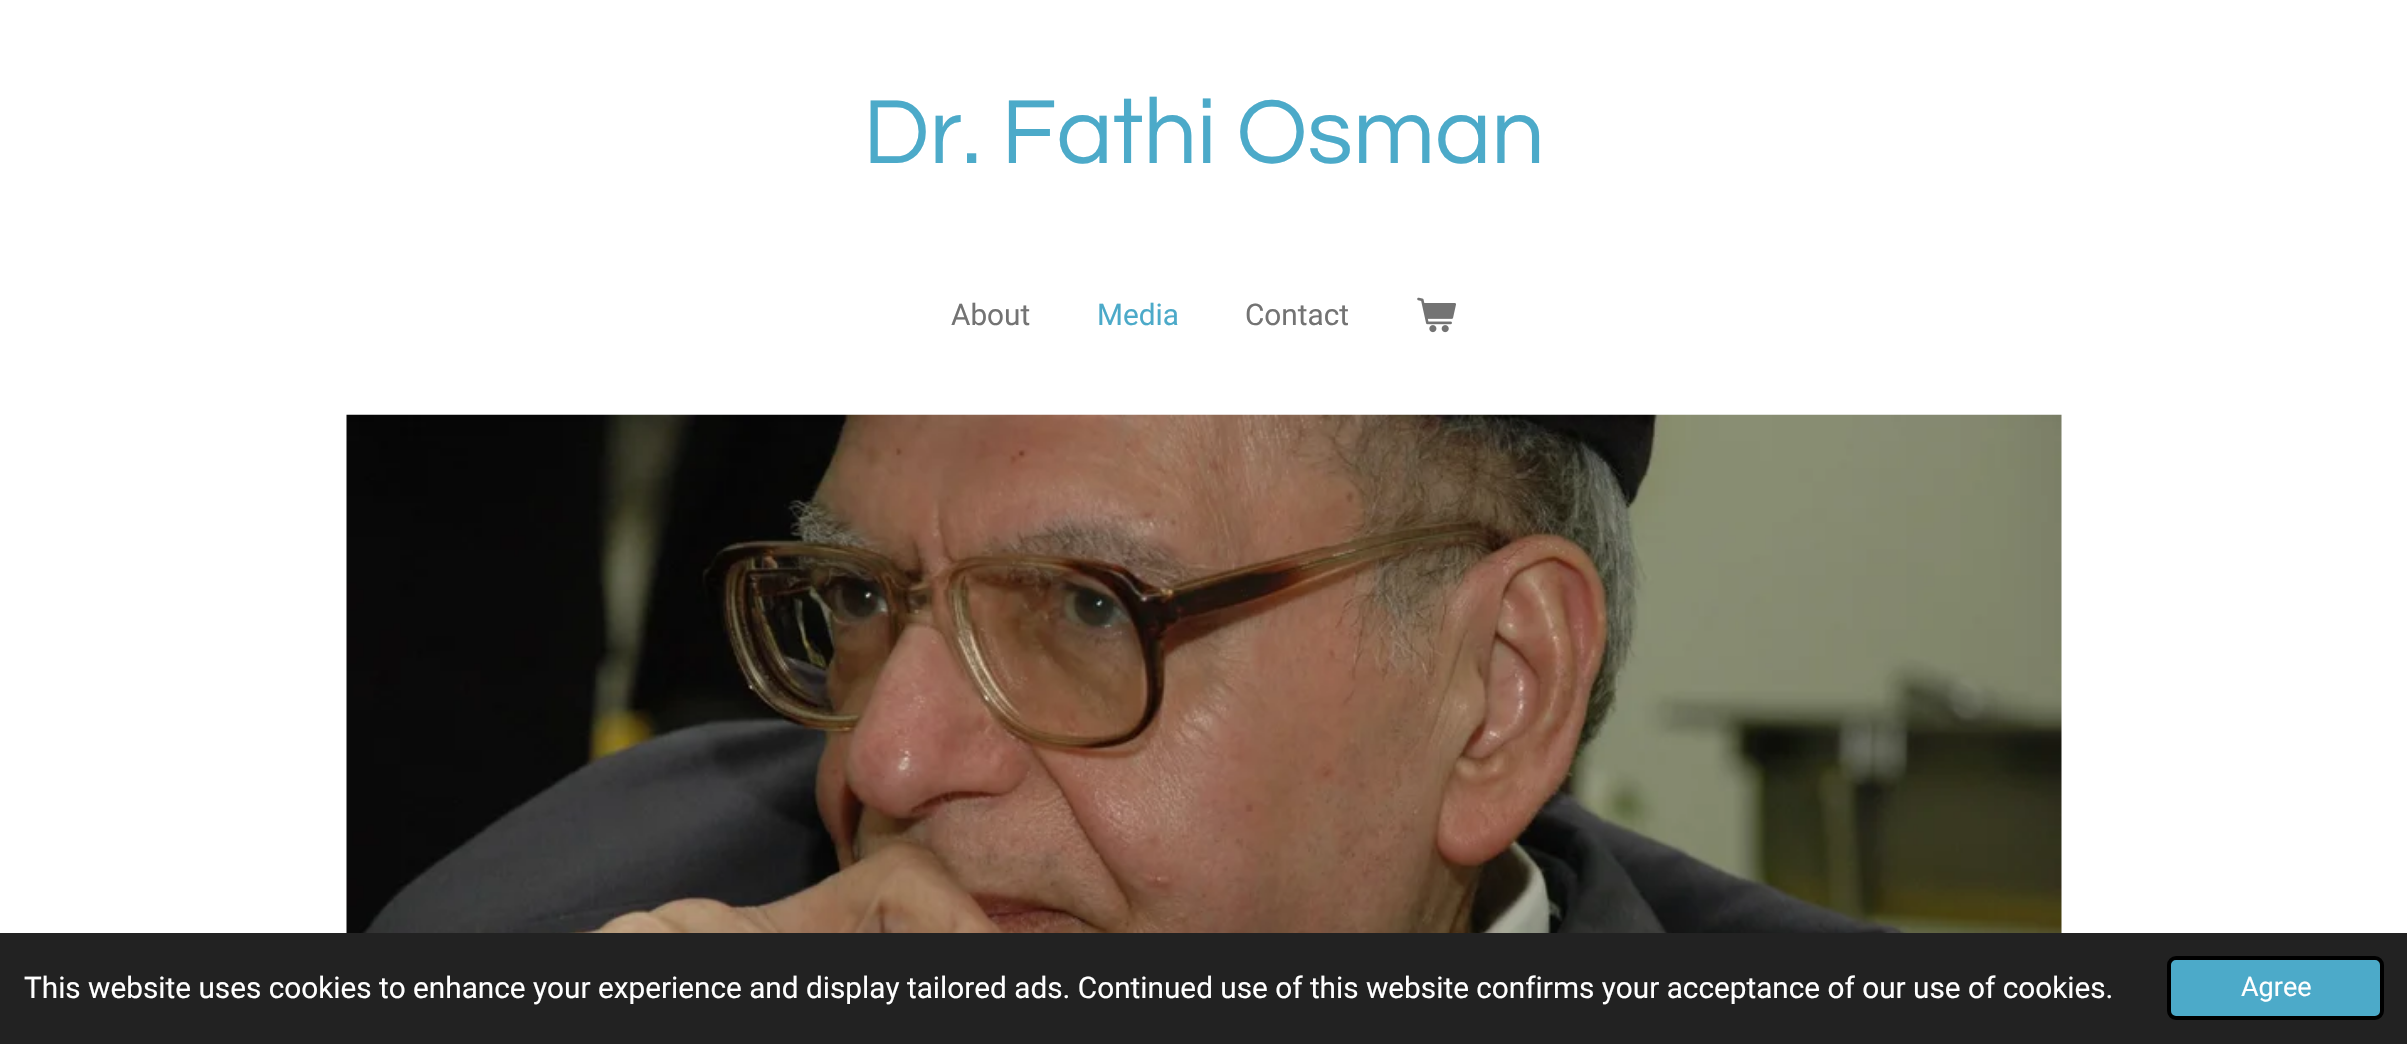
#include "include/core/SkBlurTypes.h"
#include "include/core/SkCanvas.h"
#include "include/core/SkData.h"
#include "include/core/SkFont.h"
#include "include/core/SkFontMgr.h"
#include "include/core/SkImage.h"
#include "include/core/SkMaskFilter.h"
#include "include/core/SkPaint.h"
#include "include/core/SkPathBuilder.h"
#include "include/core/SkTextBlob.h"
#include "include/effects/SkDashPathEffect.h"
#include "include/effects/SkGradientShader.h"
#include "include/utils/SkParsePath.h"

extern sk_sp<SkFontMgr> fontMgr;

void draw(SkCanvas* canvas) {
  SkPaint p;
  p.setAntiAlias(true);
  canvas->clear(SK_ColorWHITE);
  canvas->drawImageRect(SkImages::DeferredFromEncodedData(SkData::MakeFromFileName("images/1.png")), SkRect::MakeLTRB(1417, 297, 1456, 333), SkSamplingOptions());
  canvas->drawImageRect(SkImages::DeferredFromEncodedData(SkData::MakeFromFileName("images/2.png")), SkRect::MakeLTRB(346, 414, 2062, 933), SkSamplingOptions());
  p.setColor(SkColorSetRGB(34, 34, 34));
  canvas->drawRect(SkRect::MakeLTRB(0, 933, 2407, 1044), p);
  p.setColor(SkColorSetRGB(76, 170, 201));
  canvas->drawRoundRect(SkRect::MakeLTRB(2169, 958, 2382, 1018), 7, 7, p);
  p.setStyle(SkPaint::kStroke_Style);
  p.setStrokeWidth(4);
  p.setColor(SK_ColorBLACK);
  canvas->drawRoundRect(SkRect::MakeLTRB(2169, 958, 2382, 1018), 7, 7, p);
  SkFont font1(fontMgr->matchFamilyStyle("Questrial", SkFontStyle::Normal()), 94.5f);
  font1.setSubpixel(true);
  p.setStyle(SkPaint::kFill_Style);
  p.setColor(SkColorSetRGB(76, 170, 201));
  canvas->drawString("Dr. Fathi Osman", 863, 163, font1, p);
  SkFont font2(fontMgr->matchFamilyStyle("Roboto", SkFontStyle::Normal()), 29.75f);
  font2.setSubpixel(true);
  p.setColor(SkColorSetRGB(115, 115, 115));
  canvas->drawString("About", 951, 325, font2, p);
  p.setColor(SkColorSetRGB(76, 170, 201));
  canvas->drawString("Media", 1097, 325, font2, p);
  p.setColor(SkColorSetRGB(115, 115, 115));
  canvas->drawString("Contact", 1245, 325, font2, p);
  p.setColor(SK_ColorWHITE);
  canvas->drawString("This website uses cookies to enhance your experience and display tailored ads. Continued use of this website confirms your acceptance of our use of cookies.", 24, 998, font2, p);
  SkFont font3(fontMgr->matchFamilyStyle("Roboto", SkFontStyle::Normal()), 27);
  font3.setSubpixel(true);
  canvas->drawString("Agree", 2241, 996, font3, p);
}
